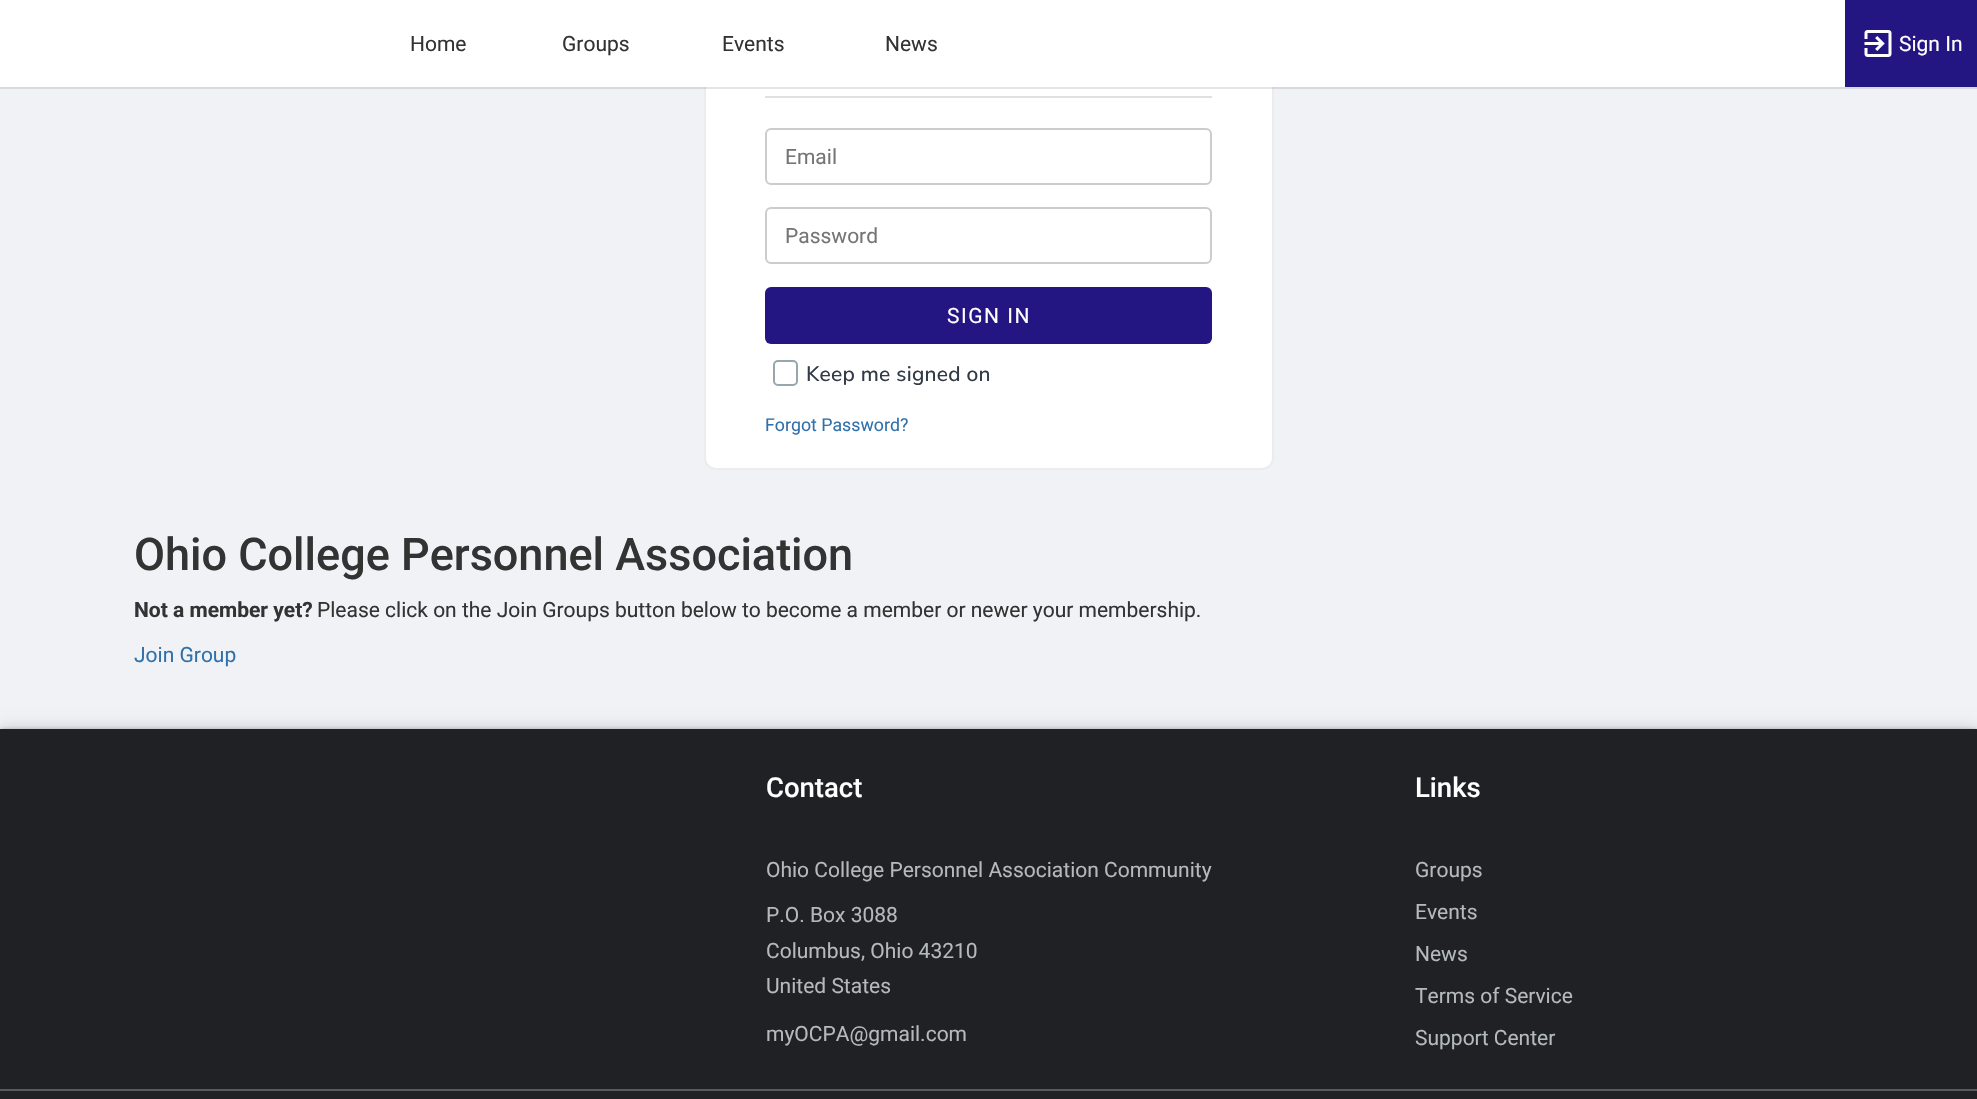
#include "include/core/SkBlurTypes.h"
#include "include/core/SkCanvas.h"
#include "include/core/SkData.h"
#include "include/core/SkFont.h"
#include "include/core/SkFontMgr.h"
#include "include/core/SkImage.h"
#include "include/core/SkMaskFilter.h"
#include "include/core/SkPaint.h"
#include "include/core/SkPathBuilder.h"
#include "include/core/SkTextBlob.h"
#include "include/effects/SkDashPathEffect.h"
#include "include/effects/SkGradientShader.h"
#include "include/utils/SkParsePath.h"

extern sk_sp<SkFontMgr> fontMgr;

void draw(SkCanvas* canvas) {
  SkPaint p;
  p.setAntiAlias(true);
  auto spacedText = [&](const char* s, float x, float y, const SkFont& font, const SkPaint& ink, float letter, float word) {
    std::vector<SkGlyphID> glyphs(font.countText(s, strlen(s), SkTextEncoding::kUTF8));
    std::vector<float> xs(glyphs.size());
    font.textToGlyphs(s, strlen(s), SkTextEncoding::kUTF8, glyphs);
    font.getXPos(glyphs, xs, x);
    float extra = 0;
    for (size_t i = 0; i < glyphs.size(); i++) {
      xs[i] += extra;
      extra += letter + word * (glyphs[i] == font.unicharToGlyph(' '));
    }
    canvas->drawTextBlob(SkTextBlob::MakeFromPosHGlyphs(glyphs, xs, y, font), 0, 0, ink);
  };
  canvas->clear(SkColorSetRGB(240, 242, 245));
  p.setColor(SK_ColorWHITE);
  canvas->drawRoundRect(SkRect::MakeLTRB(705, -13, 1273, 469), 11, 11, p);
  p.setStyle(SkPaint::kStroke_Style);
  p.setStrokeWidth(2);
  p.setColor(SkColorSetRGB(236, 236, 236));
  canvas->drawRoundRect(SkRect::MakeLTRB(705, -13, 1273, 469), 11, 11, p);
  p.setStyle(SkPaint::kFill_Style);
  p.setColor(SK_ColorWHITE);
  canvas->drawRect(SkRect::MakeLTRB(0, 0, 1845, 87), p);
  p.setColor(SkColorSetARGB(26, 0, 0, 0));
  canvas->drawRect(SkRect::MakeLTRB(360, 87, 1977, 89), p);
  p.setColor(SkColorSetRGB(35, 22, 130));
  canvas->drawRect(SkRect::MakeLTRB(1845, 0, 1977, 87), p);
  canvas->drawImageRect(SkImages::DeferredFromEncodedData(SkData::MakeFromFileName("images/1.png")), SkRect::MakeLTRB(1864, 30, 1892, 57), SkSamplingOptions());
  p.setColor(SkColorSetRGB(216, 218, 221));
  canvas->drawRect(SkRect::MakeLTRB(0, 87, 360, 89), p);
  p.setColor(SkColorSetRGB(224, 224, 224));
  canvas->drawRect(SkRect::MakeLTRB(765, 96, 1212, 98), p);
  p.setStyle(SkPaint::kStroke_Style);
  p.setColor(SkColorSetRGB(204, 204, 204));
  canvas->drawRoundRect(SkRect::MakeLTRB(766, 129, 1211, 184), 5, 5, p);
  canvas->drawRoundRect(SkRect::MakeLTRB(766, 208, 1211, 263), 5, 5, p);
  p.setStyle(SkPaint::kFill_Style);
  p.setColor(SkColorSetRGB(35, 22, 130));
  canvas->drawRoundRect(SkRect::MakeLTRB(765, 287, 1212, 344), 6, 6, p);
  p.setStyle(SkPaint::kStroke_Style);
  p.setColor(SkColorSetRGB(152, 166, 173));
  canvas->drawRoundRect(SkRect::MakeLTRB(774, 361, 797, 385), 4, 4, p);
  p.setStyle(SkPaint::kFill_Style);
  p.setColor(SkColorSetARGB(31, 0, 0, 0));
  p.setMaskFilter(SkMaskFilter::MakeBlur(kNormal_SkBlurStyle, 1));
  canvas->drawRect(SkRect::MakeLTRB(2, 729, 1976, 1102), p);
  p.setMaskFilter(nullptr);
  p.setColor(SkColorSetARGB(36, 0, 0, 0));
  p.setMaskFilter(SkMaskFilter::MakeBlur(kNormal_SkBlurStyle, 7.5f));
  canvas->drawRect(SkRect::MakeLTRB(0, 728, 1977, 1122), p);
  p.setMaskFilter(nullptr);
  p.setColor(SkColorSetARGB(26, 0, 0, 0));
  p.setMaskFilter(SkMaskFilter::MakeBlur(kNormal_SkBlurStyle, 2));
  canvas->drawRect(SkRect::MakeLTRB(0, 728, 1977, 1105), p);
  p.setMaskFilter(nullptr);
  p.setColor(SkColorSetRGB(32, 33, 36));
  canvas->drawRect(SkRect::MakeLTRB(0, 729, 1977, 1099), p);
  p.setColor(SkColorSetRGB(90, 90, 90));
  canvas->drawRect(SkRect::MakeLTRB(0, 1089, 1977, 1091), p);
  SkFont font1(fontMgr->matchFamilyStyle("Roboto", SkFontStyle::Normal()), 21);
  font1.setSubpixel(true);
  p.setColor(SkColorSetRGB(51, 51, 51));
  canvas->drawString("Home", 410, 51, font1, p);
  canvas->drawString("Groups", 562, 51, font1, p);
  canvas->drawString("Events", 722, 51, font1, p);
  canvas->drawString("News", 885, 51, font1, p);
  p.setColor(SK_ColorWHITE);
  canvas->drawString("Sign In", 1899, 51, font1, p);
  p.setColor(SkColorSetRGB(117, 117, 117));
  canvas->drawString("Email", 785, 164, font1, p);
  canvas->drawString("Password", 785, 243, font1, p);
  p.setColor(SK_ColorWHITE);
  spacedText("SIGN IN", 947, 323, font1, p, 1.5f, 0);
  SkFont font2(fontMgr->matchFamilyStyle("Nunito Sans", SkFontStyle(500, SkFontStyle::kNormal_Width, SkFontStyle::kUpright_Slant)), 21);
  font2.setSubpixel(true);
  p.setColor(SkColorSetRGB(49, 58, 70));
  spacedText("Keep me signed on", 806, 381, font2, p, 0.25f, 0);
  SkFont font3(fontMgr->matchFamilyStyle("Roboto", SkFontStyle::Normal()), 17.75f);
  font3.setSubpixel(true);
  p.setColor(SkColorSetRGB(48, 113, 171));
  canvas->drawString("Forgot Password?", 765, 431, font3, p);
  SkFont font4(fontMgr->matchFamilyStyle("Roboto", SkFontStyle(500, SkFontStyle::kNormal_Width, SkFontStyle::kUpright_Slant)), 45);
  font4.setSubpixel(true);
  p.setColor(SkColorSetRGB(51, 51, 51));
  canvas->drawString("Ohio College Personnel Association", 134, 570, font4, p);
  SkFont font5(fontMgr->matchFamilyStyle("Roboto", SkFontStyle::Bold()), 21);
  font5.setSubpixel(true);
  canvas->drawString("Not a member yet?", 134, 617, font5, p);
  canvas->drawString("Please click on the Join Groups button below to become a member or newer your membership.", 317, 617, font1, p);
  p.setColor(SkColorSetRGB(48, 113, 171));
  canvas->drawString("Join Group", 134, 662, font1, p);
  SkFont font6(fontMgr->matchFamilyStyle("Roboto", SkFontStyle(500, SkFontStyle::kNormal_Width, SkFontStyle::kUpright_Slant)), 27.5f);
  font6.setSubpixel(true);
  p.setColor(SK_ColorWHITE);
  canvas->drawString("Contact", 766, 797, font6, p);
  p.setColor(SkColorSetRGB(179, 185, 189));
  canvas->drawString("Ohio College Personnel Association Community", 766, 877, font1, p);
  canvas->drawString("P.O. Box 3088", 766, 922, font1, p);
  canvas->drawString("Columbus, Ohio 43210", 766, 958, font1, p);
  canvas->drawString("United States", 766, 993, font1, p);
  canvas->drawString("myOCPA@gmail.com", 766, 1041, font1, p);
  p.setColor(SK_ColorWHITE);
  canvas->drawString("Links", 1415, 797, font6, p);
  p.setColor(SkColorSetRGB(179, 185, 189));
  canvas->drawString("Groups", 1415, 877, font1, p);
  canvas->drawString("Events", 1415, 919, font1, p);
  canvas->drawString("News", 1415, 961, font1, p);
  canvas->drawString("Terms of Service", 1415, 1003, font1, p);
  canvas->drawString("Support Center", 1415, 1045, font1, p);
}
